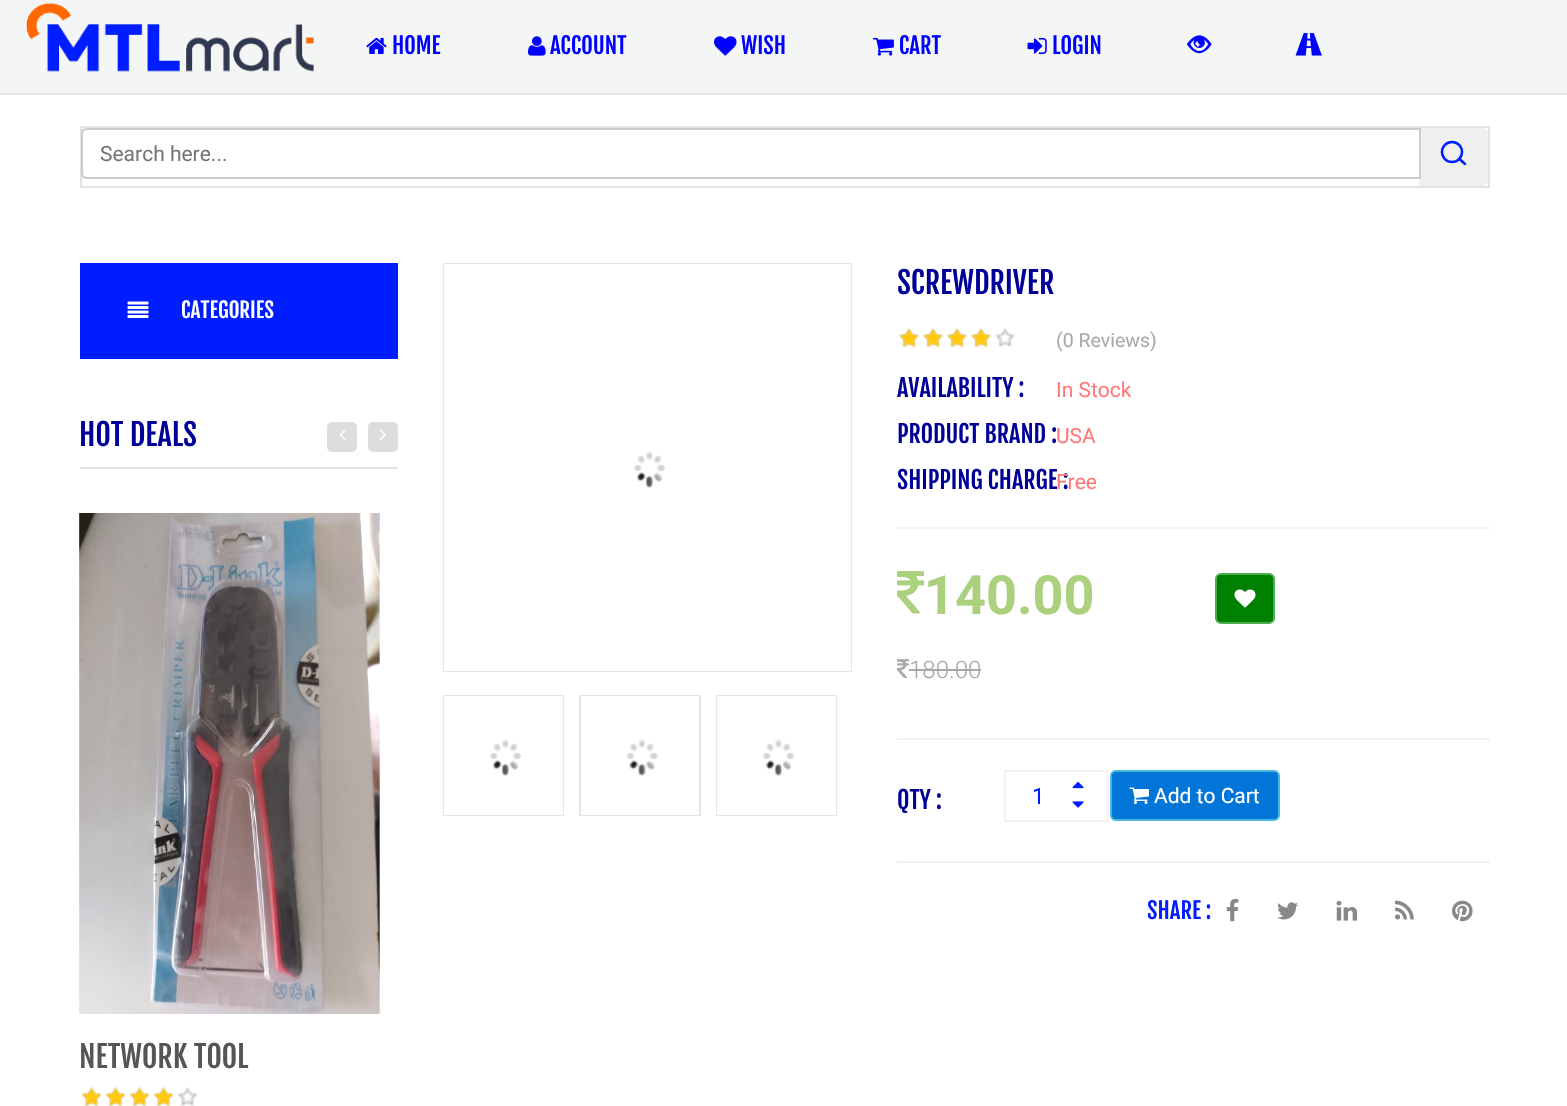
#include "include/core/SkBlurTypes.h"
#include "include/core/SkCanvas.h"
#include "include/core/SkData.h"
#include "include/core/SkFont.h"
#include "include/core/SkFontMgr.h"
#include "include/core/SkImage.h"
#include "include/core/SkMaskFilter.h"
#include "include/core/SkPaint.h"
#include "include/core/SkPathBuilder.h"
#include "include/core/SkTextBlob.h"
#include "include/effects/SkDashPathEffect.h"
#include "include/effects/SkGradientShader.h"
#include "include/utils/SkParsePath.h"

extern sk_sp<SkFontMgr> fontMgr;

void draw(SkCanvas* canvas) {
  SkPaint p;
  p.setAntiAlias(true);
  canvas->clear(SK_ColorWHITE);
  p.setColor(SkColorSetRGB(231, 231, 231));
  canvas->drawRect(SkRect::MakeLTRB(0, 93, 1567, 95), p);
  p.setColor(SkColorSetRGB(244, 246, 246));
  canvas->drawRect(SkRect::MakeLTRB(0, 0, 1567, 93), p);
  canvas->drawImageRect(SkImages::DeferredFromEncodedData(SkData::MakeFromFileName("images/1.png")), SkRect::MakeLTRB(26, 3, 314, 72), SkSamplingOptions());
  canvas->drawImageRect(SkImages::DeferredFromEncodedData(SkData::MakeFromFileName("images/2.png")), SkRect::MakeLTRB(366, 37, 387, 54), SkSamplingOptions());
  canvas->drawImageRect(SkImages::DeferredFromEncodedData(SkData::MakeFromFileName("images/3.png")), SkRect::MakeLTRB(528, 36, 546, 56), SkSamplingOptions());
  canvas->drawImageRect(SkImages::DeferredFromEncodedData(SkData::MakeFromFileName("images/4.png")), SkRect::MakeLTRB(714, 36, 737, 56), SkSamplingOptions());
  canvas->drawImageRect(SkImages::DeferredFromEncodedData(SkData::MakeFromFileName("images/5.png")), SkRect::MakeLTRB(873, 37, 894, 56), SkSamplingOptions());
  canvas->drawImageRect(SkImages::DeferredFromEncodedData(SkData::MakeFromFileName("images/6.png")), SkRect::MakeLTRB(1027, 37, 1047, 54), SkSamplingOptions());
  canvas->drawImageRect(SkImages::DeferredFromEncodedData(SkData::MakeFromFileName("images/7.png")), SkRect::MakeLTRB(1186, 35, 1212, 54), SkSamplingOptions());
  canvas->drawImageRect(SkImages::DeferredFromEncodedData(SkData::MakeFromFileName("images/8.png")), SkRect::MakeLTRB(1295, 33, 1322, 56), SkSamplingOptions());
  p.setStyle(SkPaint::kStroke_Style);
  p.setStrokeWidth(2);
  p.setColor(SkColorSetRGB(226, 226, 226));
  canvas->drawRect(SkRect::MakeLTRB(81, 127, 1489, 187), p);
  p.setStyle(SkPaint::kFill_Style);
  p.setColor(SkColorSetRGB(239, 239, 239));
  canvas->drawPath(SkPathBuilder().moveTo(1419, 128).lineTo(1482, 128).cubicTo(1485.5f, 128, 1488, 130.5f, 1488, 134).lineTo(1488, 180).cubicTo(1488, 183.5f, 1485.5f, 186, 1482, 186).lineTo(1419, 186).close().detach(), p);
  p.setColor(SK_ColorWHITE);
  canvas->drawPath(SkPathBuilder().moveTo(87, 129).lineTo(1420, 129).lineTo(1420, 178).lineTo(87, 178).cubicTo(84, 178, 82, 176, 82, 173).lineTo(82, 134).cubicTo(82, 131, 84, 129, 87, 129).close().detach(), p);
  p.setStyle(SkPaint::kStroke_Style);
  p.setColor(SkColorSetRGB(204, 204, 204));
  canvas->drawPath(SkPathBuilder().moveTo(87, 129).lineTo(1420, 129).lineTo(1420, 178).lineTo(87, 178).cubicTo(84, 178, 82, 176, 82, 173).lineTo(82, 134).cubicTo(82, 131, 84, 129, 87, 129).close().detach(), p);
  p.setStrokeWidth(2.5f);
  p.setColor(SkColorSetRGB(0, 29, 255));
  canvas->drawCircle(1452, 152, 10, p);
  p.setStrokeCap(SkPaint::kRound_Cap);
  p.setStrokeJoin(SkPaint::kRound_Join);
  canvas->drawPath(SkPathBuilder().moveTo(1465, 164).lineTo(1459.5f, 159).detach(), p);
  p.setStyle(SkPaint::kFill_Style);
  canvas->drawRect(SkRect::MakeLTRB(80, 263, 398, 359), p);
  canvas->drawImageRect(SkImages::DeferredFromEncodedData(SkData::MakeFromFileName("images/9.png")), SkRect::MakeLTRB(127, 301, 149, 318), SkSamplingOptions());
  p.setColor(SkColorSetRGB(227, 227, 227));
  canvas->drawRect(SkRect::MakeLTRB(80, 467, 398, 469), p);
  p.setColor(SkColorSetRGB(221, 221, 221));
  canvas->drawRoundRect(SkRect::MakeLTRB(327, 422, 357, 452), 5, 5, p);
  canvas->drawImageRect(SkImages::DeferredFromEncodedData(SkData::MakeFromFileName("images/10.png")), SkRect::MakeLTRB(339, 429, 346, 440), SkSamplingOptions());
  canvas->drawRoundRect(SkRect::MakeLTRB(368, 422, 398, 452), 5, 5, p);
  canvas->drawImageRect(SkImages::DeferredFromEncodedData(SkData::MakeFromFileName("images/11.png")), SkRect::MakeLTRB(379, 429, 386, 440), SkSamplingOptions());
  canvas->drawImageRect(SkImages::DeferredFromEncodedData(SkData::MakeFromFileName("images/12.png")), SkRect::MakeLTRB(79, 513, 380, 1014), SkSamplingOptions());
  canvas->drawImageRect(SkImages::DeferredFromEncodedData(SkData::MakeFromFileName("images/13.png")), SkRect::MakeLTRB(81, 1087, 198, 1106), SkSamplingOptions());
  canvas->drawImageRect(SkImages::DeferredFromEncodedData(SkData::MakeFromFileName("images/14.png")), SkRect::MakeLTRB(82, 1087, 173, 1106), SkSamplingOptions());
  p.setStyle(SkPaint::kStroke_Style);
  p.setStrokeWidth(2);
  p.setStrokeCap(SkPaint::kButt_Cap);
  p.setStrokeJoin(SkPaint::kMiter_Join);
  p.setColor(SkColorSetRGB(229, 229, 229));
  canvas->drawRect(SkRect::MakeLTRB(444, 264, 851, 671), p);
  p.setStyle(SkPaint::kFill_Style);
  p.setColor(SK_ColorWHITE);
  canvas->drawRect(SkRect::MakeLTRB(444, 264, 851, 671), p);
  canvas->drawImageRect(SkImages::DeferredFromEncodedData(SkData::MakeFromFileName("images/15.png")), SkRect::MakeLTRB(634, 451, 666, 488), SkSamplingOptions());
  p.setStyle(SkPaint::kStroke_Style);
  p.setColor(SkColorSetRGB(229, 229, 229));
  canvas->drawRect(SkRect::MakeLTRB(444, 696, 563, 815), p);
  p.setStyle(SkPaint::kFill_Style);
  p.setColor(SK_ColorWHITE);
  canvas->drawRect(SkRect::MakeLTRB(444, 696, 563, 815), p);
  canvas->drawImageRect(SkImages::DeferredFromEncodedData(SkData::MakeFromFileName("images/15.png")), SkRect::MakeLTRB(490, 739, 522, 776), SkSamplingOptions());
  p.setStyle(SkPaint::kStroke_Style);
  p.setColor(SkColorSetRGB(229, 229, 229));
  canvas->drawRect(SkRect::MakeLTRB(580, 696, 700, 815), p);
  p.setStyle(SkPaint::kFill_Style);
  p.setColor(SK_ColorWHITE);
  canvas->drawRect(SkRect::MakeLTRB(581, 696, 699, 815), p);
  canvas->drawImageRect(SkImages::DeferredFromEncodedData(SkData::MakeFromFileName("images/16.png")), SkRect::MakeLTRB(626, 739, 658, 776), SkSamplingOptions());
  p.setStyle(SkPaint::kStroke_Style);
  p.setColor(SkColorSetRGB(229, 229, 229));
  canvas->drawRect(SkRect::MakeLTRB(717, 696, 836, 815), p);
  p.setStyle(SkPaint::kFill_Style);
  p.setColor(SK_ColorWHITE);
  canvas->drawRect(SkRect::MakeLTRB(717, 696, 836, 815), p);
  canvas->drawImageRect(SkImages::DeferredFromEncodedData(SkData::MakeFromFileName("images/15.png")), SkRect::MakeLTRB(763, 739, 795, 776), SkSamplingOptions());
  canvas->drawImageRect(SkImages::DeferredFromEncodedData(SkData::MakeFromFileName("images/17.png")), SkRect::MakeLTRB(899, 328, 1016, 347), SkSamplingOptions());
  canvas->drawImageRect(SkImages::DeferredFromEncodedData(SkData::MakeFromFileName("images/18.png")), SkRect::MakeLTRB(899, 328, 991, 347), SkSamplingOptions());
  p.setColor(SkColorSetRGB(242, 242, 242));
  canvas->drawRect(SkRect::MakeLTRB(897, 527, 1490, 529), p);
  canvas->drawRect(SkRect::MakeLTRB(897, 738, 1490, 740), p);
  canvas->drawImageRect(SkImages::DeferredFromEncodedData(SkData::MakeFromFileName("images/19.png")), SkRect::MakeLTRB(897, 571, 925, 614), SkSamplingOptions());
  canvas->drawImageRect(SkImages::DeferredFromEncodedData(SkData::MakeFromFileName("images/20.png")), SkRect::MakeLTRB(897, 659, 909, 678), SkSamplingOptions());
  p.setColor(SkColorSetRGB(170, 170, 170));
  canvas->drawRect(SkRect::MakeLTRB(909, 669, 981, 671), p);
  p.setColor(SkColorSetRGB(0, 128, 0));
  canvas->drawRoundRect(SkRect::MakeLTRB(1216, 574, 1274, 623), 5, 5, p);
  p.setStyle(SkPaint::kStroke_Style);
  p.setColor(SkColorSetRGB(76, 174, 76));
  canvas->drawRoundRect(SkRect::MakeLTRB(1216, 574, 1274, 623), 5, 5, p);
  canvas->drawImageRect(SkImages::DeferredFromEncodedData(SkData::MakeFromFileName("images/21.png")), SkRect::MakeLTRB(1234, 589, 1256, 608), SkSamplingOptions());
  p.setStyle(SkPaint::kFill_Style);
  p.setColor(SkColorSetRGB(242, 242, 242));
  canvas->drawRect(SkRect::MakeLTRB(897, 861, 1490, 863), p);
  p.setStyle(SkPaint::kStroke_Style);
  canvas->drawRect(SkRect::MakeLTRB(1005, 771, 1108, 821), p);
  canvas->drawImageRect(SkImages::DeferredFromEncodedData(SkData::MakeFromFileName("images/22.png")), SkRect::MakeLTRB(1072, 781, 1084, 789), SkSamplingOptions());
  canvas->drawImageRect(SkImages::DeferredFromEncodedData(SkData::MakeFromFileName("images/23.png")), SkRect::MakeLTRB(1072, 801, 1084, 808), SkSamplingOptions());
  p.setStyle(SkPaint::kFill_Style);
  p.setColor(SkColorSetRGB(2, 117, 216));
  canvas->drawRoundRect(SkRect::MakeLTRB(1111, 771, 1279, 820), 5, 5, p);
  p.setStyle(SkPaint::kStroke_Style);
  p.setColor(SkColorSetRGB(70, 184, 218));
  canvas->drawRoundRect(SkRect::MakeLTRB(1111, 771, 1279, 820), 5, 5, p);
  canvas->drawImageRect(SkImages::DeferredFromEncodedData(SkData::MakeFromFileName("images/24.png")), SkRect::MakeLTRB(1129, 787, 1149, 804), SkSamplingOptions());
  canvas->drawImageRect(SkImages::DeferredFromEncodedData(SkData::MakeFromFileName("images/25.png")), SkRect::MakeLTRB(1226, 898, 1239, 922), SkSamplingOptions());
  canvas->drawImageRect(SkImages::DeferredFromEncodedData(SkData::MakeFromFileName("images/26.png")), SkRect::MakeLTRB(1277, 902, 1298, 920), SkSamplingOptions());
  canvas->drawImageRect(SkImages::DeferredFromEncodedData(SkData::MakeFromFileName("images/27.png")), SkRect::MakeLTRB(1336, 901, 1358, 921), SkSamplingOptions());
  canvas->drawImageRect(SkImages::DeferredFromEncodedData(SkData::MakeFromFileName("images/28.png")), SkRect::MakeLTRB(1395, 900, 1414, 920), SkSamplingOptions());
  canvas->drawImageRect(SkImages::DeferredFromEncodedData(SkData::MakeFromFileName("images/29.png")), SkRect::MakeLTRB(1452, 900, 1473, 922), SkSamplingOptions());
  SkFont font1(fontMgr->matchFamilyStyle("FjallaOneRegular", SkFontStyle::Normal()), 22.5f);
  font1.setSubpixel(true);
  p.setStyle(SkPaint::kFill_Style);
  p.setColor(SkColorSetRGB(0, 0, 255));
  canvas->drawString("HOME", 392, 54, font1, p);
  canvas->drawString("ACCOUNT", 550, 54, font1, p);
  canvas->drawString("WISH", 741, 54, font1, p);
  canvas->drawString("CART", 899, 54, font1, p);
  canvas->drawString("LOGIN", 1052, 54, font1, p);
  SkFont font2(fontMgr->matchFamilyStyle("Roboto", SkFontStyle::Normal()), 21);
  font2.setSubpixel(true);
  p.setColor(SkColorSetRGB(119, 119, 119));
  canvas->drawString("Search here...", 100, 161, font2, p);
  SkFont font3(fontMgr->matchFamilyStyle("FjallaOneRegular", SkFontStyle::Normal()), 21);
  font3.setSubpixel(true);
  p.setColor(SK_ColorWHITE);
  canvas->drawString("CATEGORIES", 181, 318, font3, p);
  SkFont font4(fontMgr->matchFamilyStyle("FjallaOneRegular", SkFontStyle::Normal()), 30);
  font4.setSubpixel(true);
  p.setColor(SkColorSetRGB(0, 0, 153));
  canvas->drawString("HOT DEALS", 79, 446, font4, p);
  p.setColor(SkColorSetRGB(85, 85, 85));
  canvas->drawString("NETWORK TOOL", 79, 1068, font4, p);
  p.setColor(SkColorSetRGB(0, 0, 153));
  canvas->drawString("SCREWDRIVER", 897, 294, font4, p);
  SkFont font5(fontMgr->matchFamilyStyle("Roboto", SkFontStyle::Normal()), 19.5f);
  font5.setSubpixel(true);
  p.setColor(SkColorSetRGB(170, 170, 170));
  canvas->drawString("(0 Reviews)", 1056, 347, font5, p);
  SkFont font6(fontMgr->matchFamilyStyle("FjallaOneRegular", SkFontStyle::Normal()), 24);
  font6.setSubpixel(true);
  p.setColor(SkColorSetRGB(0, 0, 153));
  canvas->drawString("AVAILABILITY :", 897, 397, font6, p);
  p.setColor(SkColorSetRGB(255, 120, 120));
  canvas->drawString("In Stock", 1056, 397, font2, p);
  p.setColor(SkColorSetRGB(0, 0, 153));
  canvas->drawString("PRODUCT BRAND :", 897, 443, font6, p);
  p.setColor(SkColorSetRGB(255, 120, 120));
  canvas->drawString("USA", 1056, 443, font2, p);
  p.setColor(SkColorSetRGB(0, 0, 153));
  canvas->drawString("SHIPPING CHARGE :", 897, 489, font6, p);
  p.setColor(SkColorSetRGB(255, 120, 120));
  canvas->drawString("Free", 1056, 489, font2, p);
  SkFont font7(fontMgr->matchFamilyStyle("Roboto", SkFontStyle::Bold()), 54);
  font7.setSubpixel(true);
  p.setColor(SkColorSetRGB(171, 208, 126));
  canvas->drawString("140.00", 924, 614, font7, p);
  SkFont font8(fontMgr->matchFamilyStyle("Roboto", SkFontStyle(300, SkFontStyle::kNormal_Width, SkFontStyle::kUpright_Slant)), 24);
  font8.setSubpixel(true);
  p.setColor(SkColorSetRGB(170, 170, 170));
  canvas->drawString("180.00", 909, 678, font8, p);
  p.setColor(SkColorSetRGB(0, 0, 153));
  canvas->drawString("QTY :", 897, 809, font6, p);
  SkFont font9(fontMgr->matchFamilyStyle("Roboto", SkFontStyle::Normal()), 22.5f);
  font9.setSubpixel(true);
  p.setColor(SkColorSetRGB(0, 29, 255));
  canvas->drawString("1", 1032, 804, font9, p);
  p.setColor(SK_ColorWHITE);
  canvas->drawString("Add to Cart", 1154, 803, font2, p);
  p.setColor(SkColorSetRGB(0, 29, 255));
  canvas->drawString("SHARE :", 1147, 919, font1, p);
}
